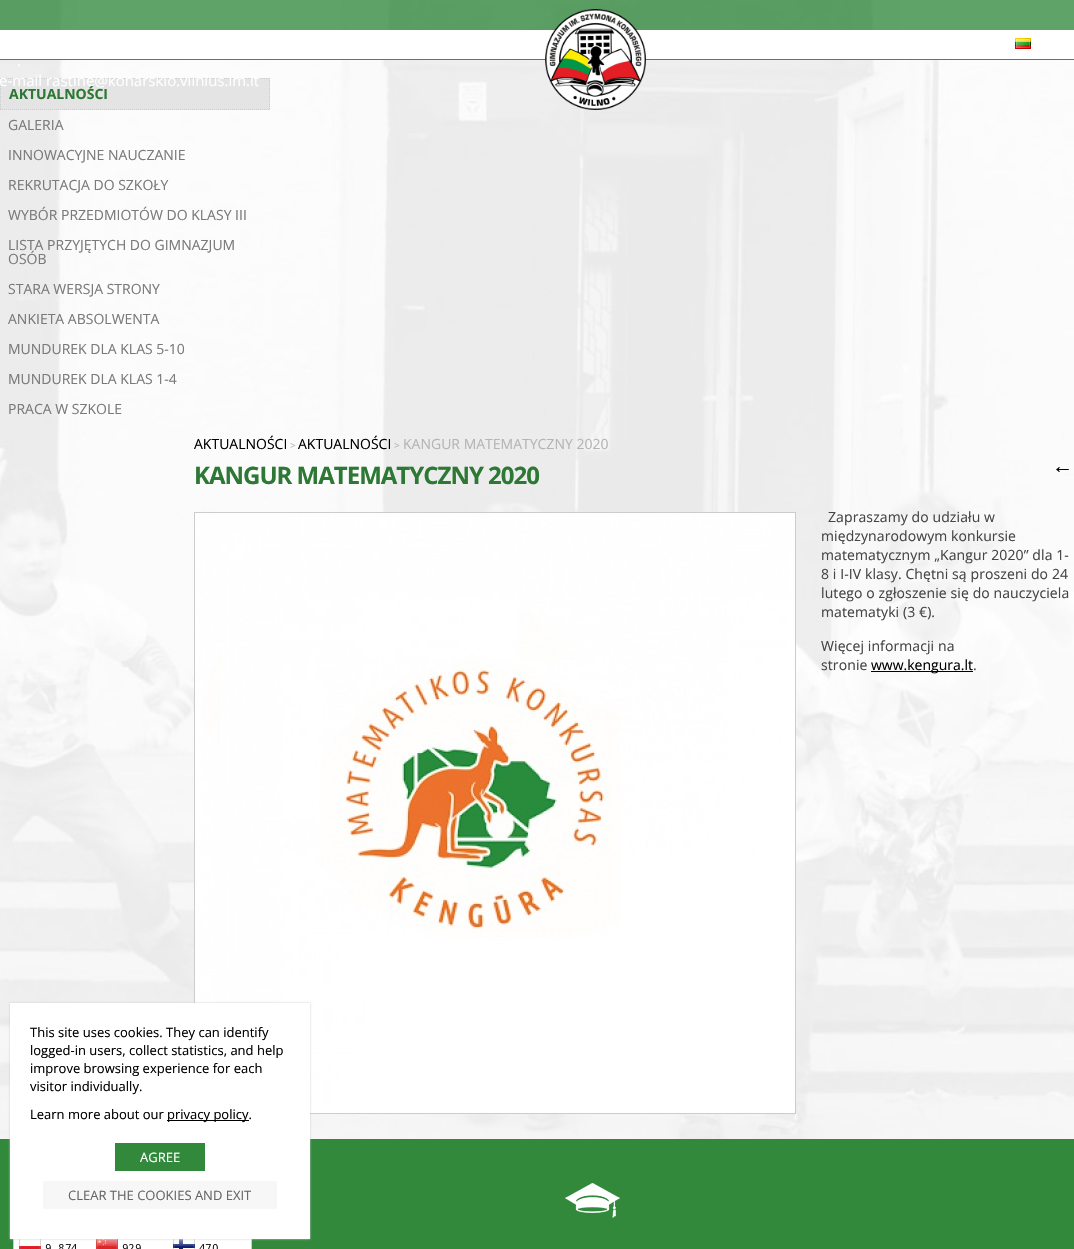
#include "include/core/SkBlurTypes.h"
#include "include/core/SkCanvas.h"
#include "include/core/SkData.h"
#include "include/core/SkFont.h"
#include "include/core/SkFontMgr.h"
#include "include/core/SkImage.h"
#include "include/core/SkMaskFilter.h"
#include "include/core/SkPaint.h"
#include "include/core/SkPathBuilder.h"
#include "include/core/SkTextBlob.h"
#include "include/effects/SkDashPathEffect.h"
#include "include/effects/SkGradientShader.h"
#include "include/utils/SkParsePath.h"

extern sk_sp<SkFontMgr> fontMgr;

void draw(SkCanvas* canvas) {
  SkPaint p;
  p.setAntiAlias(true);
  auto spacedText = [&](const char* s, float x, float y, const SkFont& font, const SkPaint& ink, float letter, float word) {
    std::vector<SkGlyphID> glyphs(font.countText(s, strlen(s), SkTextEncoding::kUTF8));
    std::vector<float> xs(glyphs.size());
    font.textToGlyphs(s, strlen(s), SkTextEncoding::kUTF8, glyphs);
    font.getXPos(glyphs, xs, x);
    float extra = 0;
    for (size_t i = 0; i < glyphs.size(); i++) {
      xs[i] += extra;
      extra += letter + word * (glyphs[i] == font.unicharToGlyph(' '));
    }
    canvas->drawTextBlob(SkTextBlob::MakeFromPosHGlyphs(glyphs, xs, y, font), 0, 0, ink);
  };
  canvas->clear(SK_ColorWHITE);
  canvas->drawImageRect(SkImages::DeferredFromEncodedData(SkData::MakeFromFileName("images/1.png")), SkRect::MakeLTRB(0, 0, 1074, 1139), SkSamplingOptions());
  canvas->drawImageRect(SkImages::DeferredFromEncodedData(SkData::MakeFromFileName("images/2.png")), SkRect::MakeLTRB(0, 0, 1074, 60), SkSamplingOptions());
  p.setColor(SkColorSetARGB(107, 255, 255, 255));
  canvas->drawRect(SkRect::MakeLTRB(0, 60, 1074, 1139), p);
  canvas->drawImageRect(SkImages::DeferredFromEncodedData(SkData::MakeFromFileName("images/3.png")), SkRect::MakeLTRB(545, 9, 646, 110), SkSamplingOptions());
  canvas->drawImageRect(SkImages::DeferredFromEncodedData(SkData::MakeFromFileName("images/4.png")), SkRect::MakeLTRB(1015, 38, 1031, 49), SkSamplingOptions());
  p.setColor(SkColorSetRGB(228, 228, 228));
  canvas->drawRect(SkRect::MakeLTRB(0, 78, 270, 110), p);
  p.setStyle(SkPaint::kStroke_Style);
  p.setStrokeWidth(1);
  p.setColor(SkColorSetRGB(204, 204, 204));
  p.setPathEffect(SkDashPathEffect::Make({{1, 1}}, 0));
  canvas->drawPath(SkPathBuilder().moveTo(0, 78.5f).lineTo(270, 78.5f).detach(), p);
  p.setPathEffect(nullptr);
  p.setPathEffect(SkDashPathEffect::Make({{1, 1}}, 0));
  canvas->drawPath(SkPathBuilder().moveTo(269.5f, 78).lineTo(269.5f, 110).detach(), p);
  p.setPathEffect(nullptr);
  p.setPathEffect(SkDashPathEffect::Make({{1, 1}}, 0));
  canvas->drawPath(SkPathBuilder().moveTo(0, 109.5f).lineTo(270, 109.5f).detach(), p);
  p.setPathEffect(nullptr);
  p.setPathEffect(SkDashPathEffect::Make({{1, 1}}, 0));
  canvas->drawPath(SkPathBuilder().moveTo(0.5f, 78).lineTo(0.5f, 110).detach(), p);
  p.setPathEffect(nullptr);
  canvas->drawRect(SkRect::MakeLTRB(194.5f, 512.5f, 795.5f, 1113.5f), p);
  canvas->drawImageRect(SkImages::DeferredFromEncodedData(SkData::MakeFromFileName("images/5.png")), SkRect::MakeLTRB(195, 513, 795, 1113), SkSamplingOptions());
  p.setStyle(SkPaint::kFill_Style);
  p.setColor(SK_ColorBLACK);
  canvas->drawRect(SkRect::MakeLTRB(871, 671, 973, 672), p);
  p.setColor(SkColorSetRGB(50, 137, 60));
  canvas->drawRect(SkRect::MakeLTRB(0, 1139, 1074, 1249), p);
  canvas->drawImageRect(SkImages::DeferredFromEncodedData(SkData::MakeFromFileName("images/7.png")), SkRect::MakeLTRB(13, 1239, 252, 1249), SkSamplingOptions());
  p.setColor(SkColorSetRGB(204, 204, 204));
  p.setMaskFilter(SkMaskFilter::MakeBlur(kNormal_SkBlurStyle, 1));
  canvas->drawRect(SkRect::MakeLTRB(10, 1003, 310, 1239), p);
  p.setMaskFilter(nullptr);
  p.setColor(SK_ColorWHITE);
  canvas->drawRect(SkRect::MakeLTRB(10, 1003, 310, 1239), p);
  p.setColor(SK_ColorBLACK);
  canvas->drawRect(SkRect::MakeLTRB(167, 1120, 249, 1121), p);
  p.setColor(SkColorSetRGB(50, 137, 60));
  canvas->drawRect(SkRect::MakeLTRB(115, 1143, 205, 1171), p);
  p.setColor(SkColorSetRGB(247, 247, 247));
  canvas->drawRect(SkRect::MakeLTRB(43, 1181, 277, 1209), p);
  canvas->drawImageRect(SkImages::DeferredFromEncodedData(SkData::MakeFromFileName("images/6.png")), SkRect::MakeLTRB(565, 1183, 620, 1218), SkSamplingOptions());
  SkFont font1(fontMgr->matchFamilyStyle("Open Sans", SkFontStyle::Normal()), 15);
  font1.setSubpixel(true);
  p.setColor(SK_ColorWHITE);
  canvas->drawString(".", 17, 66, font1, p);
  canvas->drawString("e-mail rastine@konarskio.vilnius.lm.lt", -1, 86, font1, p);
  SkFont font2(fontMgr->matchFamilyStyle("Open Sans", SkFontStyle::Bold()), 14);
  font2.setSubpixel(true);
  p.setColor(SkColorSetRGB(44, 120, 52));
  canvas->drawString("AKTUALNOŚCI", 9, 99, font2, p);
  SkFont font3(fontMgr->matchFamilyStyle("Open Sans", SkFontStyle::Normal()), 14);
  font3.setSubpixel(true);
  p.setColor(SkColorSetRGB(122, 122, 122));
  canvas->drawString("GALERIA", 8, 130, font3, p);
  canvas->drawString("INNOWACYJNE NAUCZANIE", 8, 160, font3, p);
  canvas->drawString("REKRUTACJA DO SZKOŁY", 8, 190, font3, p);
  canvas->drawString("WYBÓR PRZEDMIOTÓW DO KLASY III", 8, 220, font3, p);
  canvas->drawString("LISTA PRZYJĘTYCH DO GIMNAZJUM", 8, 250, font3, p);
  canvas->drawString("OSÓB", 8, 264, font3, p);
  canvas->drawString("STARA WERSJA STRONY", 8, 294, font3, p);
  canvas->drawString("ANKIETA ABSOLWENTA", 8, 324, font3, p);
  canvas->drawString("MUNDUREK DLA KLAS 5-10", 8, 354, font3, p);
  canvas->drawString("MUNDUREK DLA KLAS 1-4", 8, 384, font3, p);
  canvas->drawString("PRACA W SZKOLE", 8, 414, font3, p);
  p.setColor(SK_ColorBLACK);
  canvas->drawString("AKTUALNOŚCI", 194, 449, font3, p);
  SkFont font4(fontMgr->matchFamilyStyle("Open Sans", SkFontStyle::Normal()), 10);
  font4.setSubpixel(true);
  p.setColor(SkColorSetRGB(181, 181, 181));
  canvas->drawString(">", 290, 449, font4, p);
  p.setColor(SK_ColorBLACK);
  canvas->drawString("AKTUALNOŚCI", 298, 449, font3, p);
  p.setColor(SkColorSetRGB(181, 181, 181));
  canvas->drawString(">", 394, 449, font4, p);
  canvas->drawString("KANGUR MATEMATYCZNY 2020", 403, 449, font3, p);
  SkFont font5(fontMgr->matchFamilyStyle("Open Sans", SkFontStyle::Bold()), 24);
  font5.setSubpixel(true);
  p.setColor(SkColorSetRGB(44, 120, 52));
  spacedText("KANGUR MATEMATYCZNY 2020", 194, 484, font5, p, -1, 0);
  SkFont font6(fontMgr->matchFamilyStyle("Liberation Sans", SkFontStyle::Normal()), 21);
  font6.setSubpixel(true);
  p.setColor(SK_ColorBLACK);
  canvas->drawString("←", 1052, 473, font6, p);
  p.setColor(SkColorSetRGB(69, 69, 69));
  spacedText("Zapraszamy do udziału w", 828, 522, font3, p, 0.1f, 0);
  spacedText("międzynarodowym konkursie", 821, 541, font3, p, 0.1f, 0);
  spacedText("matematycznym „Kangur 2020” dla 1-", 821, 560, font3, p, 0.1f, 0);
  spacedText("8 i I-IV klasy. Chętni są proszeni do 24", 821, 579, font3, p, 0.1f, 0);
  spacedText("lutego o zgłoszenie się do nauczyciela", 821, 598, font3, p, 0.1f, 0);
  spacedText("matematyki (3 €).", 821, 617, font3, p, 0.1f, 0);
  spacedText("Więcej informacji na", 821, 651, font3, p, 0.1f, 0);
  spacedText("stronie", 821, 670, font3, p, 0.1f, 0);
  p.setColor(SK_ColorBLACK);
  canvas->drawString("www.kengura.lt", 871, 670, font3, p);
  p.setColor(SkColorSetRGB(69, 69, 69));
  spacedText(".", 973, 670, font3, p, 0.1f, 0);
  SkFont font7(fontMgr->matchFamilyStyle("Open Sans", SkFontStyle::Normal()), 13);
  font7.setSubpixel(true);
  p.setColor(SK_ColorBLACK);
  canvas->drawString("This site uses cookies. They can identify", 30, 1037, font7, p);
  canvas->drawString("logged-in users, collect statistics, and help", 30, 1055, font7, p);
  canvas->drawString("improve browsing experience for each", 30, 1073, font7, p);
  canvas->drawString("visitor individually.", 30, 1091, font7, p);
  canvas->drawString("Learn more about our", 30, 1119, font7, p);
  canvas->drawString("privacy policy.", 167, 1119, font7, p);
  p.setColor(SK_ColorWHITE);
  canvas->drawString("AGREE", 140, 1162, font7, p);
  p.setColor(SkColorSetRGB(102, 102, 102));
  canvas->drawString("CLEAR THE COOKIES AND EXIT", 68, 1200, font7, p);
}
